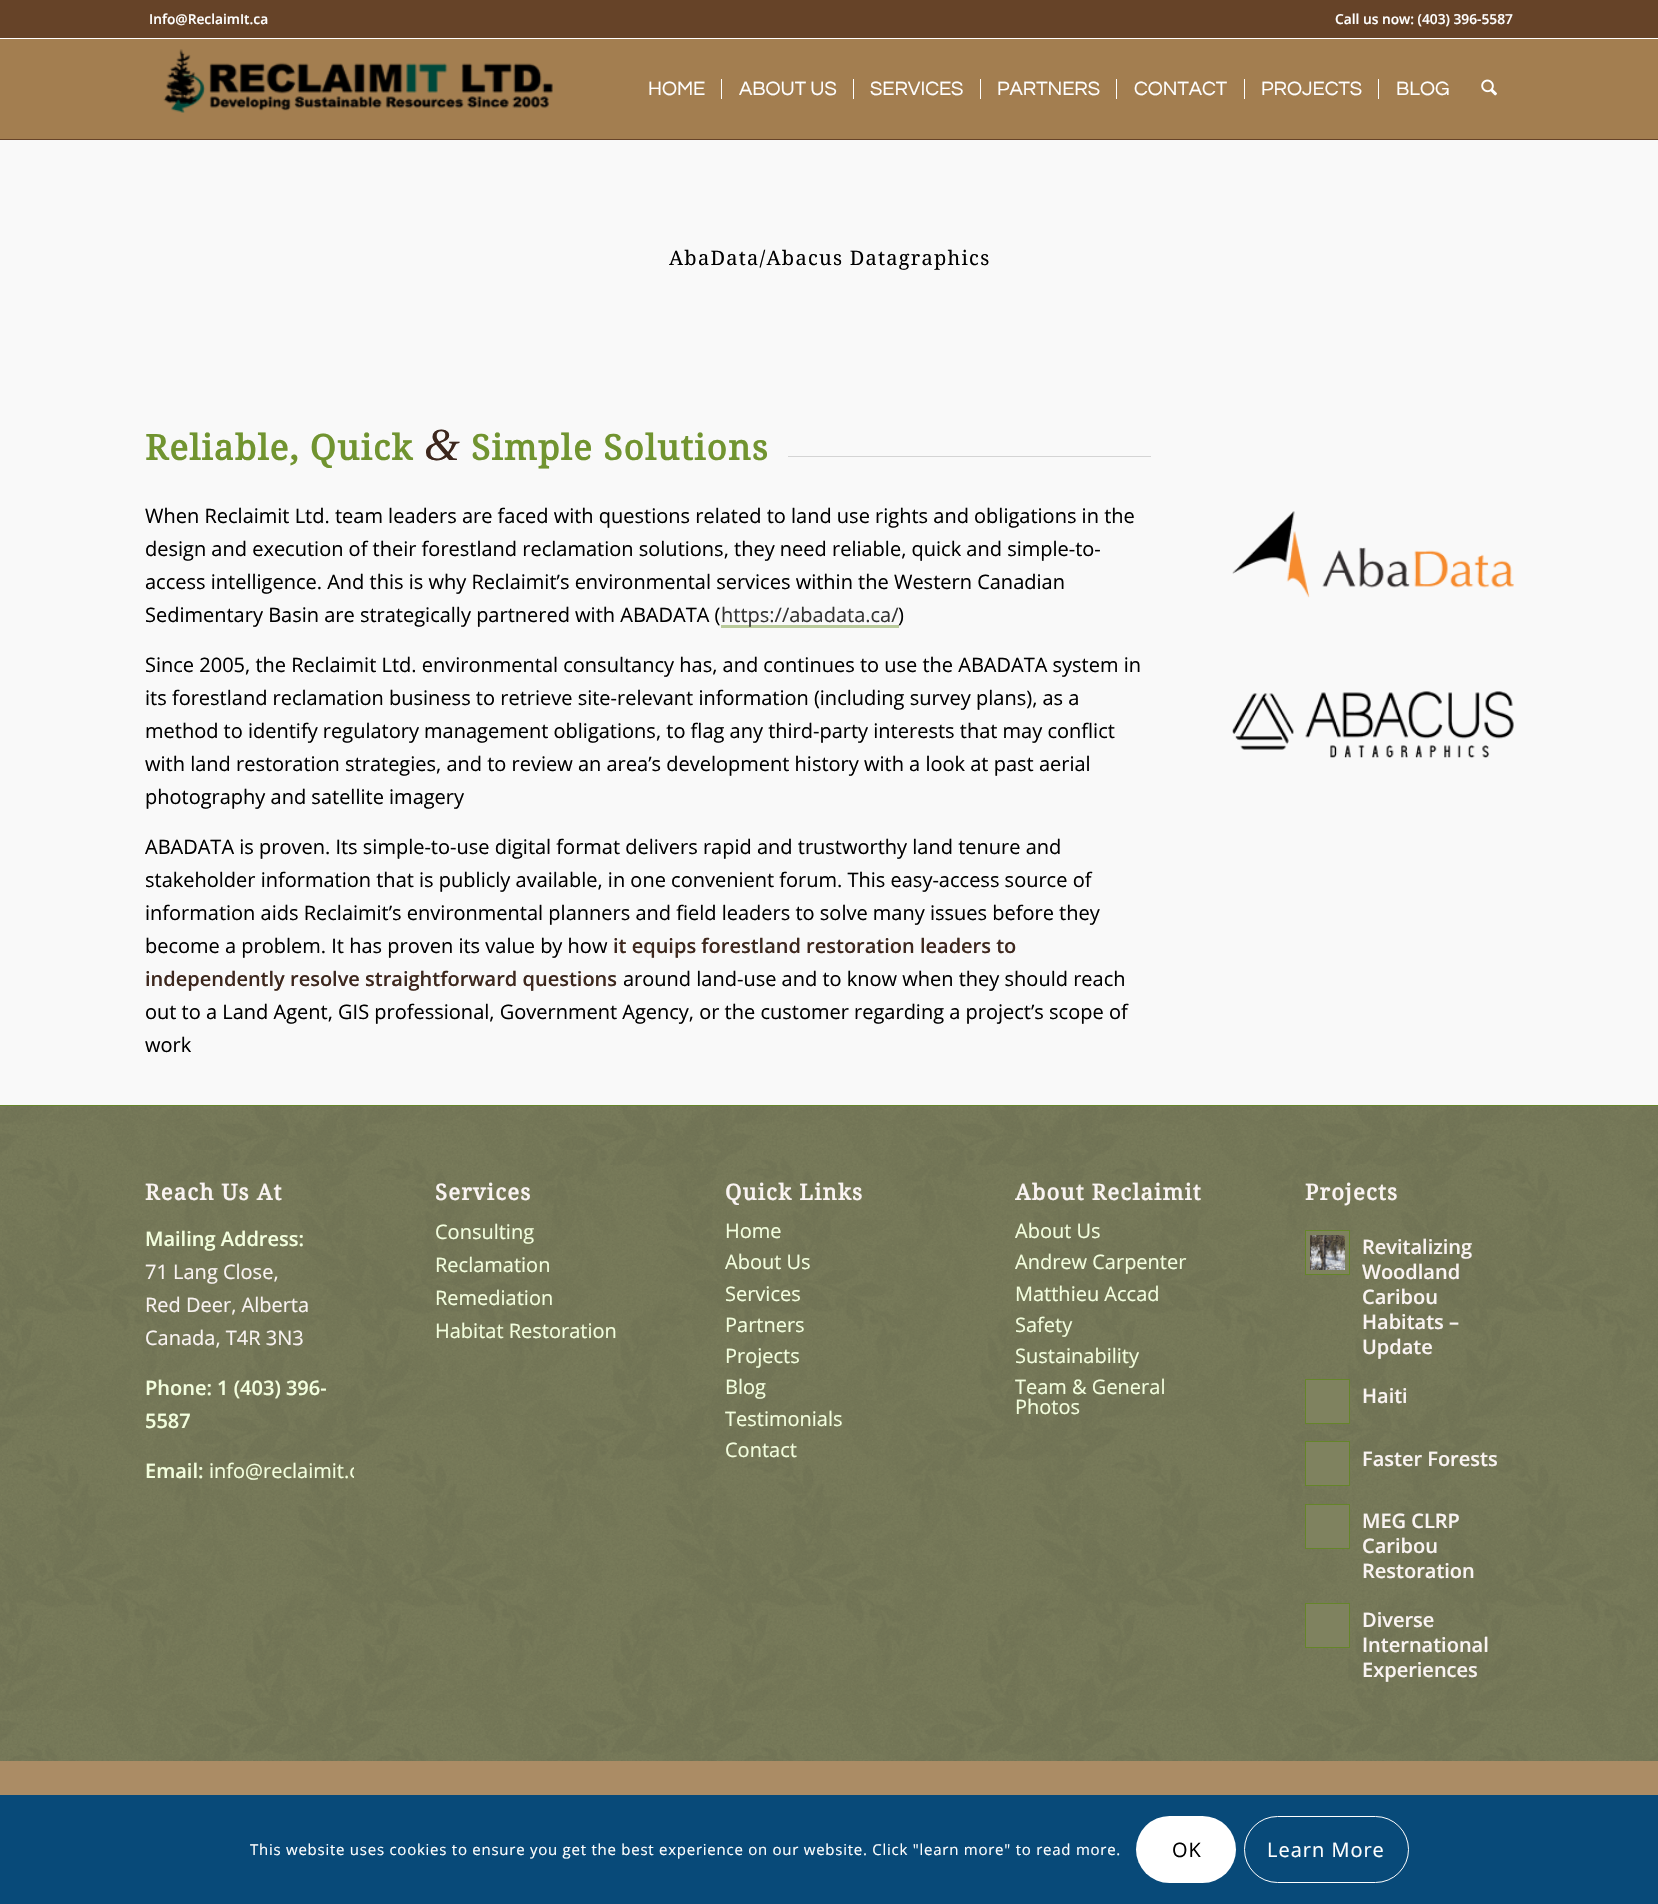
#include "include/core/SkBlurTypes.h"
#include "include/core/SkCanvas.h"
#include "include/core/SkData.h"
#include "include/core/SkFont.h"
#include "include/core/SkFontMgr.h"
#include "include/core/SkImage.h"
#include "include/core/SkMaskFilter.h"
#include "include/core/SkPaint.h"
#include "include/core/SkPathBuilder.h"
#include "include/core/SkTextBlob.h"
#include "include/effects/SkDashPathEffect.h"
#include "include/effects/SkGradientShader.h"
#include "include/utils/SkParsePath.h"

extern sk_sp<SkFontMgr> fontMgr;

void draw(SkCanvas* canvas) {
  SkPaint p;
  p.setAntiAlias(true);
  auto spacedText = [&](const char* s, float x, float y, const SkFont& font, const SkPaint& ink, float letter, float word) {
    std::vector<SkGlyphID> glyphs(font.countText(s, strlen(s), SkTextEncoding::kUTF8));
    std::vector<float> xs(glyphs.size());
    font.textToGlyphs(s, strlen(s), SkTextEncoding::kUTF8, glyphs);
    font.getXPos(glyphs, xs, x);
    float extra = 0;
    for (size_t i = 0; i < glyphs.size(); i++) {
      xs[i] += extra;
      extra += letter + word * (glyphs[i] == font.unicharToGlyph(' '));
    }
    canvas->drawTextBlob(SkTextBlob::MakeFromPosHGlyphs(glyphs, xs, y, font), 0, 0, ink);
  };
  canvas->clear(SkColorSetRGB(249, 249, 249));
  p.setColor(SkColorSetRGB(102, 67, 40));
  canvas->drawRect(SkRect::MakeLTRB(0, 0, 1658, 38), p);
  p.setColor(SK_ColorWHITE);
  canvas->drawRect(SkRect::MakeLTRB(0, 38, 1658, 39), p);
  p.setColor(SkColorSetRGB(163, 126, 80));
  canvas->drawRect(SkRect::MakeLTRB(0, 39, 1658, 139), p);
  p.setColor(SkColorSetRGB(102, 67, 40));
  canvas->drawRect(SkRect::MakeLTRB(0, 139, 1658, 140), p);
  canvas->drawImageRect(SkImages::DeferredFromEncodedData(SkData::MakeFromFileName("images/1.png")), SkRect::MakeLTRB(163, 49, 553, 113), SkSamplingOptions());
  p.setColor(SK_ColorWHITE);
  canvas->drawRect(SkRect::MakeLTRB(721, 79, 722, 99), p);
  canvas->drawRect(SkRect::MakeLTRB(853, 79, 854, 99), p);
  canvas->drawRect(SkRect::MakeLTRB(980, 79, 981, 99), p);
  canvas->drawRect(SkRect::MakeLTRB(1116, 79, 1117, 99), p);
  canvas->drawRect(SkRect::MakeLTRB(1244, 79, 1245, 99), p);
  canvas->drawRect(SkRect::MakeLTRB(1378, 79, 1379, 99), p);
  canvas->drawImageRect(SkImages::DeferredFromEncodedData(SkData::MakeFromFileName("images/2.png")), SkRect::MakeLTRB(1481, 79, 1497, 96), SkSamplingOptions());
  p.setColor(SkColorSetRGB(212, 212, 212));
  canvas->drawRect(SkRect::MakeLTRB(788, 456, 1151, 457), p);
  p.setColor(SkColorSetRGB(185, 202, 155));
  canvas->drawRect(SkRect::MakeLTRB(721, 625, 899, 628), p);
  canvas->drawImageRect(SkImages::DeferredFromEncodedData(SkData::MakeFromFileName("images/3.png")), SkRect::MakeLTRB(1232, 511, 1514, 598), SkSamplingOptions());
  canvas->drawImageRect(SkImages::DeferredFromEncodedData(SkData::MakeFromFileName("images/4.png")), SkRect::MakeLTRB(1232, 691, 1514, 758), SkSamplingOptions());
  p.setColor(SkColorSetRGB(127, 130, 95));
  canvas->drawRect(SkRect::MakeLTRB(0, 1106, 1658, 1761), p);
  canvas->drawImageRect(SkImages::DeferredFromEncodedData(SkData::MakeFromFileName("images/5.png")), SkRect::MakeLTRB(0, 1106, 1658, 1761), SkSamplingOptions());
  p.setColor(SkColorSetRGB(101, 133, 41));
  canvas->drawRect(SkRect::MakeLTRB(0, 1105, 1658, 1106), p);
  p.setColor(SkColorSetRGB(127, 130, 95));
  canvas->drawRect(SkRect::MakeLTRB(1305.5f, 1230.5f, 1349.5f, 1274.5f), p);
  p.setStyle(SkPaint::kStroke_Style);
  p.setStrokeWidth(1);
  p.setColor(SkColorSetRGB(101, 133, 41));
  canvas->drawRect(SkRect::MakeLTRB(1305.5f, 1230.5f, 1349.5f, 1274.5f), p);
  canvas->drawImageRect(SkImages::DeferredFromEncodedData(SkData::MakeFromFileName("images/6.png")), SkRect::MakeLTRB(1310, 1235, 1345, 1270), SkSamplingOptions());
  p.setStyle(SkPaint::kFill_Style);
  p.setColor(SkColorSetRGB(127, 130, 95));
  canvas->drawRect(SkRect::MakeLTRB(1305.5f, 1379.5f, 1349.5f, 1423.5f), p);
  p.setStyle(SkPaint::kStroke_Style);
  p.setColor(SkColorSetRGB(101, 133, 41));
  canvas->drawRect(SkRect::MakeLTRB(1305.5f, 1379.5f, 1349.5f, 1423.5f), p);
  p.setStyle(SkPaint::kFill_Style);
  p.setColor(SkColorSetRGB(127, 130, 95));
  canvas->drawRect(SkRect::MakeLTRB(1305.5f, 1441.5f, 1349.5f, 1485.5f), p);
  p.setStyle(SkPaint::kStroke_Style);
  p.setColor(SkColorSetRGB(101, 133, 41));
  canvas->drawRect(SkRect::MakeLTRB(1305.5f, 1441.5f, 1349.5f, 1485.5f), p);
  p.setStyle(SkPaint::kFill_Style);
  p.setColor(SkColorSetRGB(127, 130, 95));
  canvas->drawRect(SkRect::MakeLTRB(1305.5f, 1504.5f, 1349.5f, 1548.5f), p);
  p.setStyle(SkPaint::kStroke_Style);
  p.setColor(SkColorSetRGB(101, 133, 41));
  canvas->drawRect(SkRect::MakeLTRB(1305.5f, 1504.5f, 1349.5f, 1548.5f), p);
  p.setStyle(SkPaint::kFill_Style);
  p.setColor(SkColorSetRGB(127, 130, 95));
  canvas->drawRect(SkRect::MakeLTRB(1305.5f, 1603.5f, 1349.5f, 1647.5f), p);
  p.setStyle(SkPaint::kStroke_Style);
  p.setColor(SkColorSetRGB(101, 133, 41));
  canvas->drawRect(SkRect::MakeLTRB(1305.5f, 1603.5f, 1349.5f, 1647.5f), p);
  p.setStyle(SkPaint::kFill_Style);
  p.setColor(SkColorSetRGB(171, 140, 101));
  canvas->drawRect(SkRect::MakeLTRB(0, 1761, 1658, 1795), p);
  p.setColor(SkColorSetRGB(8, 74, 121));
  canvas->drawRect(SkRect::MakeLTRB(0, 1795, 1658, 1904), p);
  p.setColor(SK_ColorWHITE);
  canvas->drawRoundRect(SkRect::MakeLTRB(1136, 1816, 1236, 1883), 33.5f, 33.5f, p);
  p.setStyle(SkPaint::kStroke_Style);
  canvas->drawRoundRect(SkRect::MakeLTRB(1244.5f, 1816.5f, 1408.5f, 1882.5f), 33, 33, p);
  SkFont font1(fontMgr->matchFamilyStyle("Open Sans", SkFontStyle(600, SkFontStyle::kNormal_Width, SkFontStyle::kUpright_Slant)), 13.75f);
  font1.setSubpixel(true);
  p.setStyle(SkPaint::kFill_Style);
  canvas->drawString("Info@ReclaimIt.ca", 149, 24, font1, p);
  canvas->drawString("Call us now: (403) 396-5587", 1335, 24, font1, p);
  SkFont font2(fontMgr->matchFamilyStyle("Questrial", SkFontStyle::Normal()), 20);
  font2.setSubpixel(true);
  canvas->drawString("HOME", 648, 95, font2, p);
  canvas->drawString("ABOUT US", 739, 95, font2, p);
  canvas->drawString("SERVICES", 870, 95, font2, p);
  canvas->drawString("PARTNERS", 997, 95, font2, p);
  canvas->drawString("CONTACT", 1134, 95, font2, p);
  canvas->drawString("PROJECTS", 1261, 95, font2, p);
  canvas->drawString("BLOG", 1396, 95, font2, p);
  SkFont font3(fontMgr->matchFamilyStyle("Droid Serif", SkFontStyle::Normal()), 20);
  font3.setSubpixel(true);
  p.setColor(SK_ColorBLACK);
  spacedText("AbaData/Abacus Datagraphics", 669, 265, font3, p, 1.25f, 0);
  SkFont font4(fontMgr->matchFamilyStyle("Droid Serif", SkFontStyle::Bold()), 35);
  font4.setSubpixel(true);
  p.setColor(SkColorSetRGB(113, 148, 48));
  spacedText("Reliable, Quick", 145, 460, font4, p, 1.25f, 0);
  SkFont font5(fontMgr->matchFamilyStyle("Liberation Serif", SkFontStyle::Italic()), 46);
  font5.setSubpixel(true);
  p.setColor(SkColorSetRGB(61, 39, 29));
  spacedText("&", 424, 460, font5, p, 1.25f, 0);
  p.setColor(SkColorSetRGB(113, 148, 48));
  spacedText("Simple Solutions", 471, 460, font4, p, 1.25f, 0);
  SkFont font6(fontMgr->matchFamilyStyle("Open Sans", SkFontStyle::Normal()), 20);
  font6.setSubpixel(true);
  p.setColor(SK_ColorBLACK);
  canvas->drawString("When Reclaimit Ltd. team leaders are faced with questions related to land use rights and obligations in the", 145, 523, font6, p);
  canvas->drawString("design and execution of their forestland reclamation solutions, they need reliable, quick and simple-to-", 145, 556, font6, p);
  canvas->drawString("access intelligence. And this is why Reclaimit’s environmental services within the Western Canadian", 145, 589, font6, p);
  canvas->drawString("Sedimentary Basin are strategically partnered with ABADATA (", 145, 622, font6, p);
  p.setColor(SkColorSetRGB(51, 51, 51));
  canvas->drawString("https://abadata.ca/", 721, 622, font6, p);
  p.setColor(SK_ColorBLACK);
  canvas->drawString(")", 898, 622, font6, p);
  canvas->drawString("Since 2005, the Reclaimit Ltd. environmental consultancy has, and continues to use the ABADATA system in", 145, 672, font6, p);
  canvas->drawString("its forestland reclamation business to retrieve site-relevant information (including survey plans), as a", 145, 705, font6, p);
  canvas->drawString("method to identify regulatory management obligations, to flag any third-party interests that may conflict", 145, 738, font6, p);
  canvas->drawString("with land restoration strategies, and to review an area’s development history with a look at past aerial", 145, 771, font6, p);
  canvas->drawString("photography and satellite imagery", 145, 804, font6, p);
  canvas->drawString("ABADATA is proven. Its simple-to-use digital format delivers rapid and trustworthy land tenure and", 145, 854, font6, p);
  canvas->drawString("stakeholder information that is publicly available, in one convenient forum. This easy-access source of", 145, 887, font6, p);
  canvas->drawString("information aids Reclaimit’s environmental planners and field leaders to solve many issues before they", 145, 920, font6, p);
  canvas->drawString("become a problem. It has proven its value by how", 145, 953, font6, p);
  SkFont font7(fontMgr->matchFamilyStyle("Open Sans", SkFontStyle(600, SkFontStyle::kNormal_Width, SkFontStyle::kUpright_Slant)), 20);
  font7.setSubpixel(true);
  p.setColor(SkColorSetRGB(61, 39, 29));
  canvas->drawString("it equips forestland restoration leaders to", 613, 953, font7, p);
  canvas->drawString("independently resolve straightforward questions", 145, 986, font7, p);
  p.setColor(SK_ColorBLACK);
  canvas->drawString("around land-use and to know when they should reach", 623, 986, font6, p);
  canvas->drawString("out to a Land Agent, GIS professional, Government Agency, or the customer regarding a project’s scope of", 145, 1019, font6, p);
  canvas->drawString("work", 145, 1052, font6, p);
  SkFont font8(fontMgr->matchFamilyStyle("Droid Serif", SkFontStyle::Bold()), 22);
  font8.setSubpixel(true);
  p.setColor(SkColorSetRGB(250, 244, 242));
  spacedText("Reach Us At", 145, 1200, font8, p, 1.25f, 0);
  p.setColor(SkColorSetRGB(243, 255, 222));
  canvas->drawString("Mailing Address:", 145, 1246, font7, p);
  p.setColor(SkColorSetRGB(250, 244, 242));
  canvas->drawString("71 Lang Close,", 145, 1279, font6, p);
  canvas->drawString("Red Deer, Alberta", 145, 1312, font6, p);
  canvas->drawString("Canada, T4R 3N3", 145, 1345, font6, p);
  p.setColor(SkColorSetRGB(243, 255, 222));
  canvas->drawString("Phone: 1 (403) 396-", 145, 1395, font7, p);
  canvas->drawString("5587", 145, 1428, font7, p);
  canvas->drawString("Email:", 145, 1478, font7, p);
  canvas->save();
  canvas->clipRect(SkRect::MakeLTRB(145, 1163, 354, 1505));
  canvas->drawString("info@reclaimit.c", 209, 1478, font6, p);
  canvas->restore();
  p.setColor(SkColorSetRGB(250, 244, 242));
  spacedText("Services", 435, 1200, font8, p, 1.25f, 0);
  p.setColor(SkColorSetRGB(243, 255, 222));
  canvas->drawString("Consulting", 435, 1239, font6, p);
  canvas->drawString("Reclamation", 435, 1272, font6, p);
  canvas->drawString("Remediation", 435, 1305, font6, p);
  canvas->drawString("Habitat Restoration", 435, 1338, font6, p);
  p.setColor(SkColorSetRGB(250, 244, 242));
  spacedText("Quick Links", 725, 1200, font8, p, 1.25f, 0);
  p.setColor(SkColorSetRGB(243, 255, 222));
  canvas->drawString("Home", 725, 1238, font6, p);
  canvas->drawString("About Us", 725, 1269, font6, p);
  canvas->drawString("Services", 725, 1301, font6, p);
  canvas->drawString("Partners", 725, 1332, font6, p);
  canvas->drawString("Projects", 725, 1363, font6, p);
  canvas->drawString("Blog", 725, 1394, font6, p);
  canvas->drawString("Testimonials", 725, 1426, font6, p);
  canvas->drawString("Contact", 725, 1457, font6, p);
  p.setColor(SkColorSetRGB(250, 244, 242));
  spacedText("About Reclaimit", 1015, 1200, font8, p, 1.25f, 0);
  p.setColor(SkColorSetRGB(243, 255, 222));
  canvas->drawString("About Us", 1015, 1238, font6, p);
  canvas->drawString("Andrew Carpenter", 1015, 1269, font6, p);
  canvas->drawString("Matthieu Accad", 1015, 1301, font6, p);
  canvas->drawString("Safety", 1015, 1332, font6, p);
  canvas->drawString("Sustainability", 1015, 1363, font6, p);
  canvas->drawString("Team & General", 1015, 1394, font6, p);
  canvas->drawString("Photos", 1015, 1414, font6, p);
  p.setColor(SkColorSetRGB(250, 244, 242));
  spacedText("Projects", 1305, 1200, font8, p, 1.25f, 0);
  canvas->drawString("Revitalizing", 1362, 1254, font7, p);
  canvas->drawString("Woodland", 1362, 1279, font7, p);
  canvas->drawString("Caribou", 1362, 1304, font7, p);
  canvas->drawString("Habitats –", 1362, 1329, font7, p);
  canvas->drawString("Update", 1362, 1354, font7, p);
  canvas->drawString("Haiti", 1362, 1403, font7, p);
  canvas->drawString("Faster Forests", 1362, 1466, font7, p);
  canvas->drawString("MEG CLRP", 1362, 1528, font7, p);
  canvas->drawString("Caribou", 1362, 1553, font7, p);
  canvas->drawString("Restoration", 1362, 1578, font7, p);
  canvas->drawString("Diverse", 1362, 1627, font7, p);
  canvas->drawString("International", 1362, 1652, font7, p);
  canvas->drawString("Experiences", 1362, 1677, font7, p);
  SkFont font9(fontMgr->matchFamilyStyle("Open Sans", SkFontStyle::Normal()), 15);
  font9.setSubpixel(true);
  p.setColor(SK_ColorWHITE);
  spacedText("This website uses cookies to ensure you get the best experience on our website. Click \"learn more\" to read more.", 250, 1855, font9, p, 0.75f, 0);
  p.setColor(SK_ColorBLACK);
  spacedText("OK", 1172, 1857, font6, p, 1, 0);
  p.setColor(SK_ColorWHITE);
  spacedText("Learn More", 1267, 1857, font6, p, 1, 0);
}
